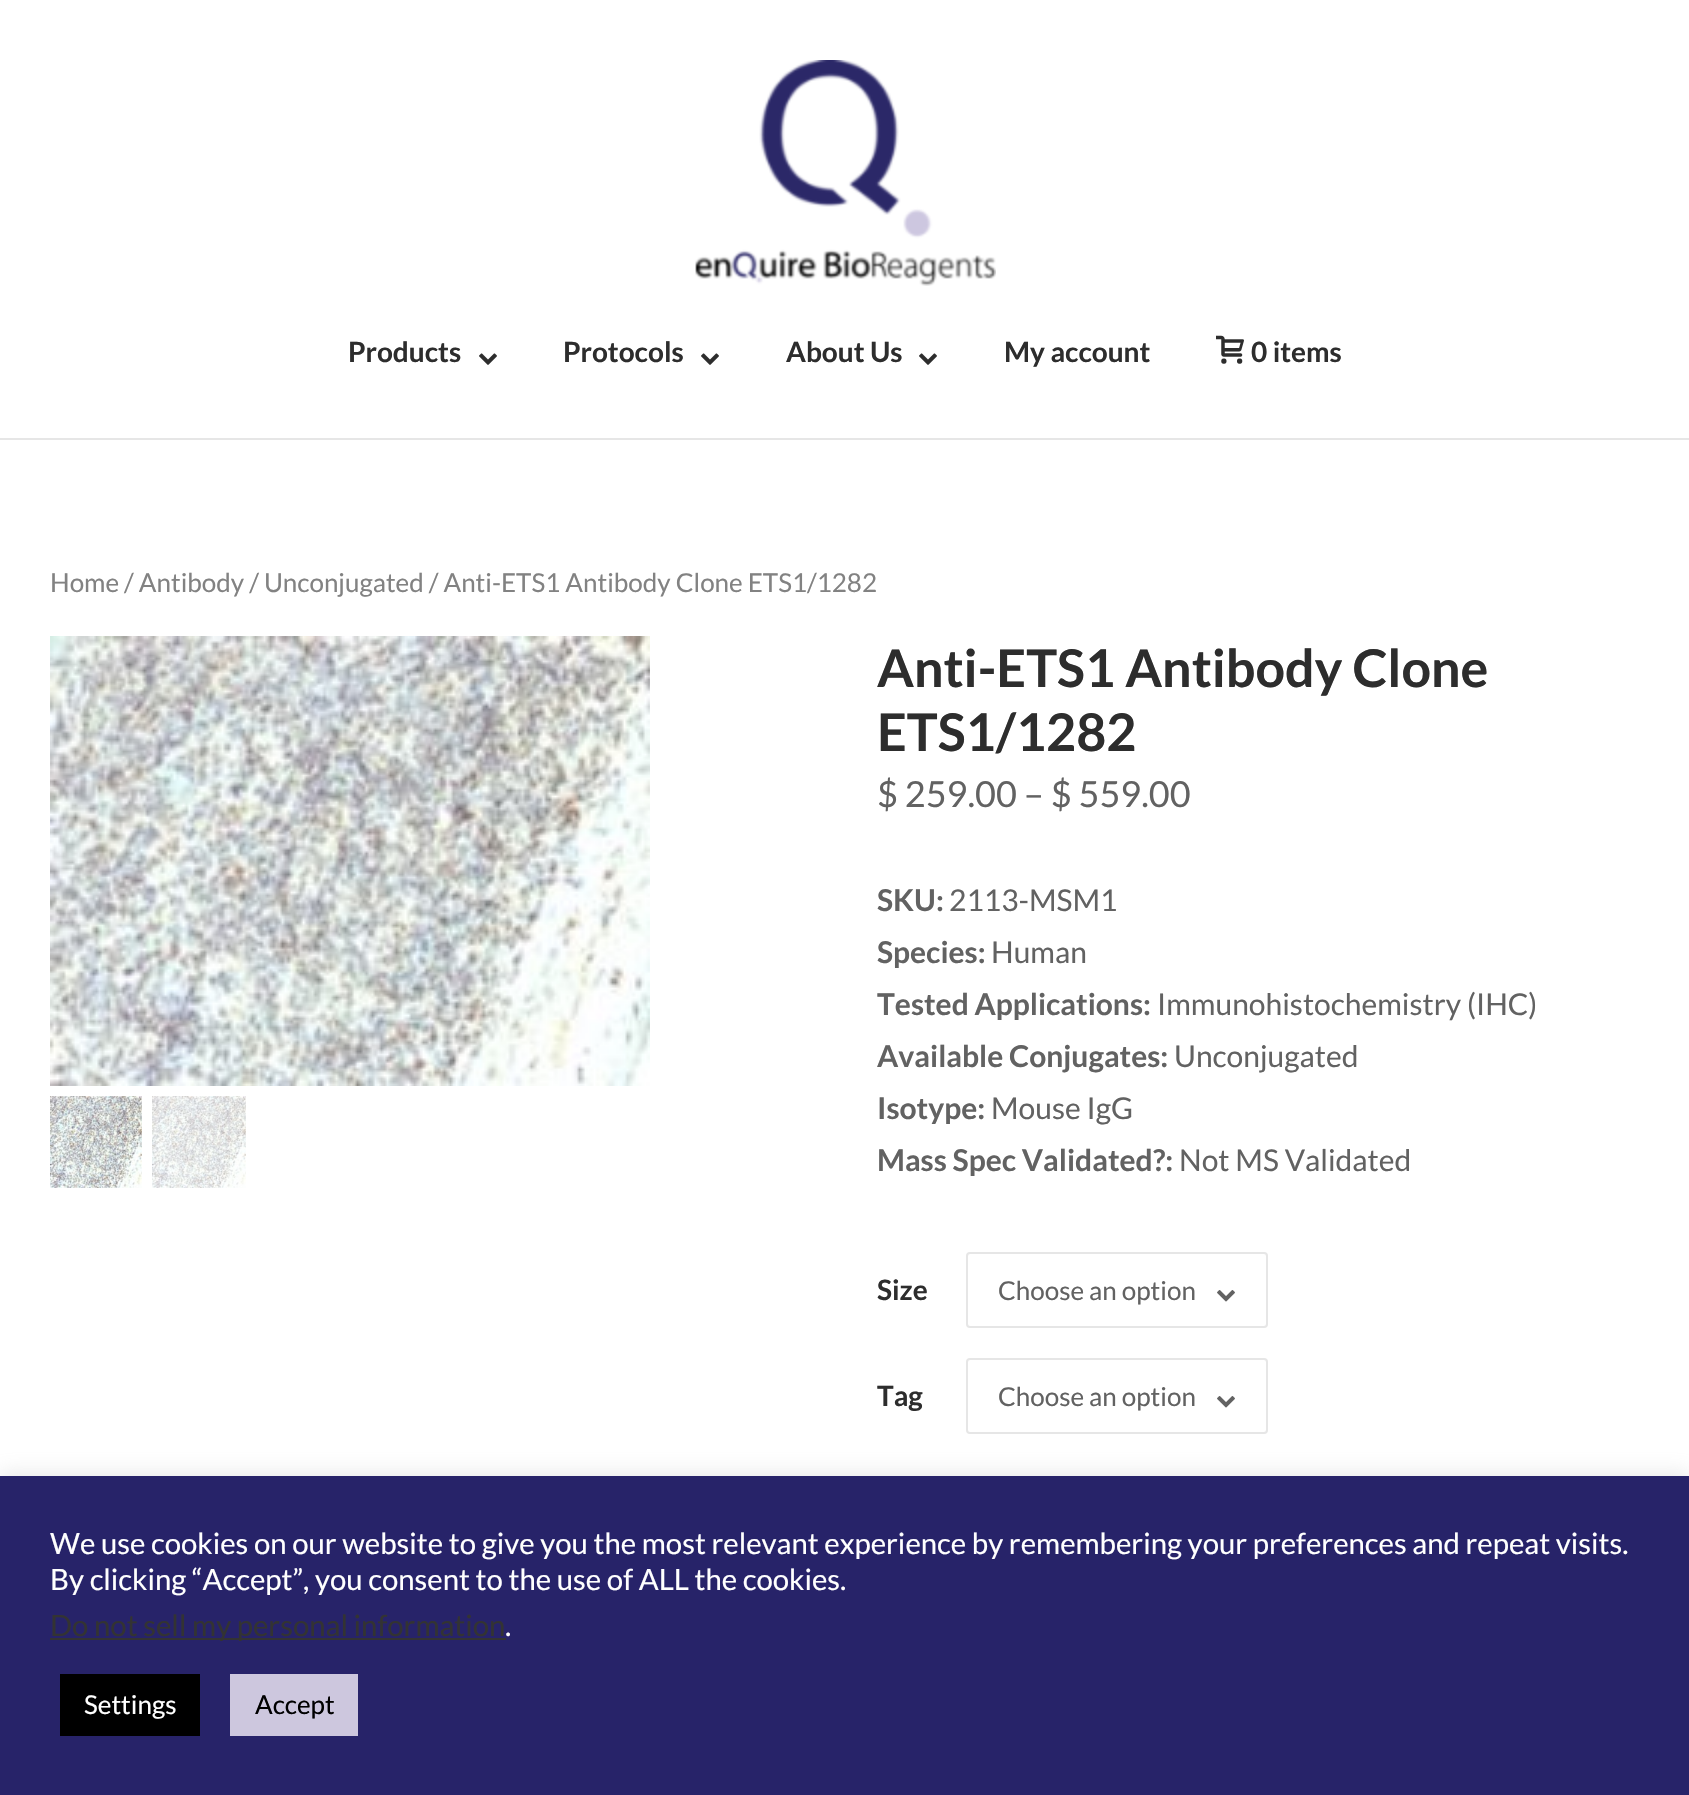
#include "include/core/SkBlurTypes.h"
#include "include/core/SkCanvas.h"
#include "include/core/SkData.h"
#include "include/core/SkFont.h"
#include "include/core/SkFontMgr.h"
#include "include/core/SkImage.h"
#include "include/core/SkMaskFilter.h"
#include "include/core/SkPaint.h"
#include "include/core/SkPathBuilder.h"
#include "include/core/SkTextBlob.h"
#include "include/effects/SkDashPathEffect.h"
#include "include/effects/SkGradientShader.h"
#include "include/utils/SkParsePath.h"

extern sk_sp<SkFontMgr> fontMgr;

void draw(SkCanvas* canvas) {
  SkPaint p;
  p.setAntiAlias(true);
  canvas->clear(SK_ColorWHITE);
  p.setColor(SkColorSetRGB(230, 230, 230));
  canvas->drawRect(SkRect::MakeLTRB(0, 438, 1689, 440), p);
  canvas->drawImageRect(SkImages::DeferredFromEncodedData(SkData::MakeFromFileName("images/1.png")), SkRect::MakeLTRB(695, 60, 996, 286), SkSamplingOptions());
  canvas->drawImageRect(SkImages::DeferredFromEncodedData(SkData::MakeFromFileName("images/2.png")), SkRect::MakeLTRB(479, 353, 497, 365), SkSamplingOptions());
  canvas->drawImageRect(SkImages::DeferredFromEncodedData(SkData::MakeFromFileName("images/2.png")), SkRect::MakeLTRB(701, 353, 719, 365), SkSamplingOptions());
  canvas->drawImageRect(SkImages::DeferredFromEncodedData(SkData::MakeFromFileName("images/2.png")), SkRect::MakeLTRB(919, 353, 937, 365), SkSamplingOptions());
  canvas->drawImageRect(SkImages::DeferredFromEncodedData(SkData::MakeFromFileName("images/3.png")), SkRect::MakeLTRB(1216, 335, 1244, 364), SkSamplingOptions());
  canvas->drawImageRect(SkImages::DeferredFromEncodedData(SkData::MakeFromFileName("images/4.png")), SkRect::MakeLTRB(50, 636, 650, 1086), SkSamplingOptions());
  canvas->drawImageRect(SkImages::DeferredFromEncodedData(SkData::MakeFromFileName("images/5.png")), SkRect::MakeLTRB(50, 1096, 142, 1188), SkSamplingOptions());
  canvas->drawImageRect(SkImages::DeferredFromEncodedData(SkData::MakeFromFileName("images/6.png")), SkRect::MakeLTRB(152, 1096, 246, 1188), SkSamplingOptions());
  p.setStyle(SkPaint::kStroke_Style);
  p.setStrokeWidth(2);
  canvas->drawRoundRect(SkRect::MakeLTRB(967, 1253, 1267, 1327), 3, 3, p);
  canvas->drawImageRect(SkImages::DeferredFromEncodedData(SkData::MakeFromFileName("images/7.png")), SkRect::MakeLTRB(1217, 1290, 1235, 1302), SkSamplingOptions());
  canvas->drawRoundRect(SkRect::MakeLTRB(967, 1359, 1267, 1433), 3, 3, p);
  canvas->drawImageRect(SkImages::DeferredFromEncodedData(SkData::MakeFromFileName("images/7.png")), SkRect::MakeLTRB(1217, 1396, 1235, 1408), SkSamplingOptions());
  p.setStyle(SkPaint::kFill_Style);
  p.setColor(SkColorSetARGB(77, 172, 171, 171));
  p.setMaskFilter(SkMaskFilter::MakeBlur(kNormal_SkBlurStyle, 10));
  canvas->drawRect(SkRect::MakeLTRB(0, 1474, 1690, 1794), p);
  p.setMaskFilter(nullptr);
  p.setColor(SkColorSetRGB(39, 35, 105));
  canvas->drawRect(SkRect::MakeLTRB(0, 1476, 1689, 1795), p);
  p.setColor(SkColorSetRGB(51, 51, 51));
  canvas->drawRect(SkRect::MakeLTRB(50, 1638, 506, 1640), p);
  p.setColor(SK_ColorBLACK);
  canvas->drawRect(SkRect::MakeLTRB(60, 1674, 200, 1736), p);
  p.setColor(SkColorSetRGB(205, 199, 222));
  canvas->drawRect(SkRect::MakeLTRB(230, 1674, 358, 1736), p);
  SkFont font1(fontMgr->matchFamilyStyle("Lato", SkFontStyle::Bold()), 28);
  font1.setSubpixel(true);
  p.setColor(SkColorSetRGB(45, 45, 45));
  canvas->drawString("Products", 348, 362, font1, p);
  canvas->drawString("Protocols", 563, 362, font1, p);
  canvas->drawString("About Us", 786, 362, font1, p);
  canvas->drawString("My account", 1004, 362, font1, p);
  canvas->drawString("0 items", 1251, 362, font1, p);
  SkFont font2(fontMgr->matchFamilyStyle("Lato", SkFontStyle::Normal()), 26);
  font2.setSubpixel(true);
  p.setColor(SkColorSetRGB(130, 130, 130));
  canvas->drawString("Home / Antibody / Unconjugated / Anti-ETS1 Antibody Clone ETS1/1282", 50, 592, font2, p);
  SkFont font3(fontMgr->matchFamilyStyle("Lato", SkFontStyle::Bold()), 52);
  font3.setSubpixel(true);
  p.setColor(SkColorSetRGB(45, 45, 45));
  canvas->drawString("Anti-ETS1 Antibody Clone", 877, 687, font3, p);
  canvas->drawString("ETS1/1282", 877, 751, font3, p);
  SkFont font4(fontMgr->matchFamilyStyle("Lato", SkFontStyle::Normal()), 36);
  font4.setSubpixel(true);
  p.setColor(SkColorSetRGB(98, 98, 98));
  canvas->drawString("$ 259.00 – $ 559.00", 877, 807, font4, p);
  SkFont font5(fontMgr->matchFamilyStyle("Lato", SkFontStyle::Bold()), 30);
  font5.setSubpixel(true);
  canvas->drawString("SKU:", 877, 911, font5, p);
  SkFont font6(fontMgr->matchFamilyStyle("Lato", SkFontStyle::Normal()), 30);
  font6.setSubpixel(true);
  canvas->drawString("2113-MSM1", 949, 911, font6, p);
  canvas->drawString("Species:", 877, 963, font5, p);
  canvas->drawString("Human", 991, 963, font6, p);
  canvas->drawString("Tested Applications:", 877, 1015, font5, p);
  canvas->drawString("Immunohistochemistry (IHC)", 1157, 1015, font6, p);
  canvas->drawString("Available Conjugates:", 877, 1067, font5, p);
  canvas->drawString("Unconjugated", 1174, 1067, font6, p);
  canvas->drawString("Isotype:", 877, 1119, font5, p);
  canvas->drawString("Mouse IgG", 991, 1119, font6, p);
  canvas->drawString("Mass Spec Validated?:", 877, 1171, font5, p);
  canvas->drawString("Not MS Validated", 1179, 1171, font6, p);
  p.setColor(SkColorSetRGB(45, 45, 45));
  canvas->drawString("Size", 877, 1300, font1, p);
  p.setColor(SkColorSetRGB(98, 98, 98));
  canvas->drawString("Choose an option", 998, 1300, font2, p);
  p.setColor(SkColorSetRGB(45, 45, 45));
  canvas->drawString("Tag", 877, 1406, font1, p);
  p.setColor(SkColorSetRGB(98, 98, 98));
  canvas->drawString("Choose an option", 998, 1406, font2, p);
  SkFont font7(fontMgr->matchFamilyStyle("Lato", SkFontStyle::Normal()), 29.33f);
  font7.setSubpixel(true);
  p.setColor(SK_ColorWHITE);
  canvas->drawString("We use cookies on our website to give you the most relevant experience by remembering your preferences and repeat visits.", 50, 1554, font7, p);
  canvas->drawString("By clicking “Accept”, you consent to the use of ALL the cookies.", 50, 1590, font7, p);
  p.setColor(SkColorSetRGB(51, 51, 51));
  canvas->drawString("Do not sell my personal information", 50, 1636, font7, p);
  p.setColor(SK_ColorWHITE);
  canvas->drawString(".", 505, 1636, font7, p);
  canvas->drawString("Settings", 84, 1714, font2, p);
  p.setColor(SK_ColorBLACK);
  canvas->drawString("Accept", 255, 1714, font2, p);
}
